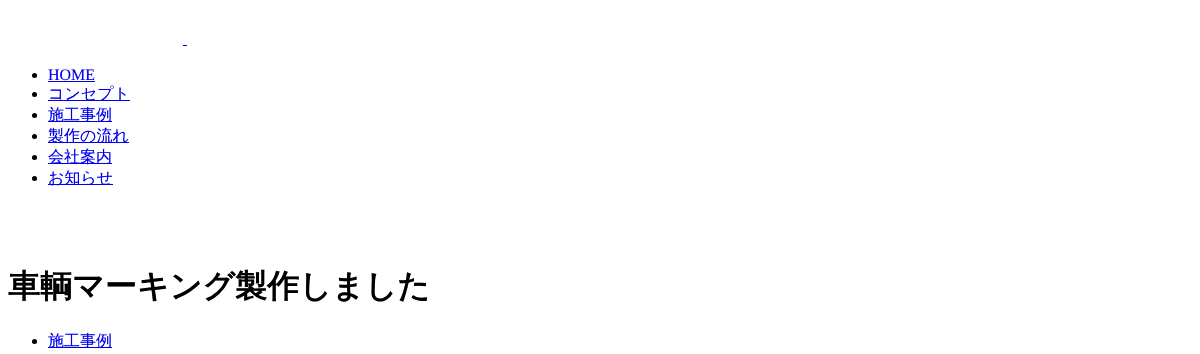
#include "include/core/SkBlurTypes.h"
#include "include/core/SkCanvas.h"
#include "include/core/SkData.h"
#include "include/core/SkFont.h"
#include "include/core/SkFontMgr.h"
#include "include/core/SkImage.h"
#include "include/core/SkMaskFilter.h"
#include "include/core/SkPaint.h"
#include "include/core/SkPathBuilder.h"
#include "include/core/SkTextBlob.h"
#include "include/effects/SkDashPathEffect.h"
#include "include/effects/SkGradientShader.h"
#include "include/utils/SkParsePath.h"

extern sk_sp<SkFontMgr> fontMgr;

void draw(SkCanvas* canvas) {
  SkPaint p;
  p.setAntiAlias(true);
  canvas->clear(SK_ColorWHITE);
  p.setColor(SkColorSetRGB(0, 0, 238));
  canvas->drawRect(SkRect::MakeLTRB(183, 45, 187, 46), p);
  p.setColor(SK_ColorBLACK);
  canvas->drawCircle(34.5f, 75.5f, 2.5f, p);
  p.setColor(SkColorSetRGB(0, 0, 238));
  canvas->drawRect(SkRect::MakeLTRB(48, 81, 95, 82), p);
  p.setColor(SK_ColorBLACK);
  canvas->drawCircle(34.5f, 94.5f, 2.5f, p);
  p.setColor(SkColorSetRGB(0, 0, 238));
  canvas->drawRect(SkRect::MakeLTRB(48, 100, 130, 101), p);
  p.setColor(SK_ColorBLACK);
  canvas->drawCircle(34.5f, 115.5f, 2.5f, p);
  p.setColor(SkColorSetRGB(0, 0, 238));
  canvas->drawRect(SkRect::MakeLTRB(48, 121, 112, 122), p);
  p.setColor(SK_ColorBLACK);
  canvas->drawCircle(34.5f, 136.5f, 2.5f, p);
  p.setColor(SkColorSetRGB(0, 0, 238));
  canvas->drawRect(SkRect::MakeLTRB(48, 142, 129, 143), p);
  p.setColor(SK_ColorBLACK);
  canvas->drawCircle(34.5f, 157.5f, 2.5f, p);
  p.setColor(SkColorSetRGB(0, 0, 238));
  canvas->drawRect(SkRect::MakeLTRB(48, 163, 112, 164), p);
  p.setColor(SK_ColorBLACK);
  canvas->drawCircle(34.5f, 178.5f, 2.5f, p);
  p.setColor(SkColorSetRGB(0, 0, 238));
  canvas->drawRect(SkRect::MakeLTRB(48, 184, 113, 185), p);
  p.setColor(SK_ColorBLACK);
  canvas->drawCircle(34.5f, 341.5f, 2.5f, p);
  p.setColor(SkColorSetRGB(0, 0, 238));
  canvas->drawRect(SkRect::MakeLTRB(48, 347, 112, 348), p);
  SkFont font1(fontMgr->matchFamilyStyle("Liberation Serif", SkFontStyle::Normal()), 16);
  font1.setSubpixel(true);
  canvas->drawString("HOME", 48, 80, font1, p);
  SkFont font2(fontMgr->matchFamilyStyle("WenQuanYi Zen Hei", SkFontStyle(500, SkFontStyle::kNormal_Width, SkFontStyle::kUpright_Slant)), 16);
  font2.setSubpixel(true);
  canvas->drawString("コンセプト", 48, 99, font2, p);
  canvas->drawString("施工事例", 48, 120, font2, p);
  canvas->drawString("製作の流れ", 48, 141, font2, p);
  canvas->drawString("会社案内", 48, 162, font2, p);
  canvas->drawString("お知らせ", 48, 183, font2, p);
  SkFont font3(fontMgr->matchFamilyStyle("WenQuanYi Zen Hei", SkFontStyle::Bold()), 32);
  font3.setSubpixel(true);
  p.setColor(SK_ColorBLACK);
  canvas->drawString("車輌マーキング製作しました", 8, 297, font3, p);
  p.setColor(SkColorSetRGB(0, 0, 238));
  canvas->drawString("施工事例", 48, 346, font2, p);
}
